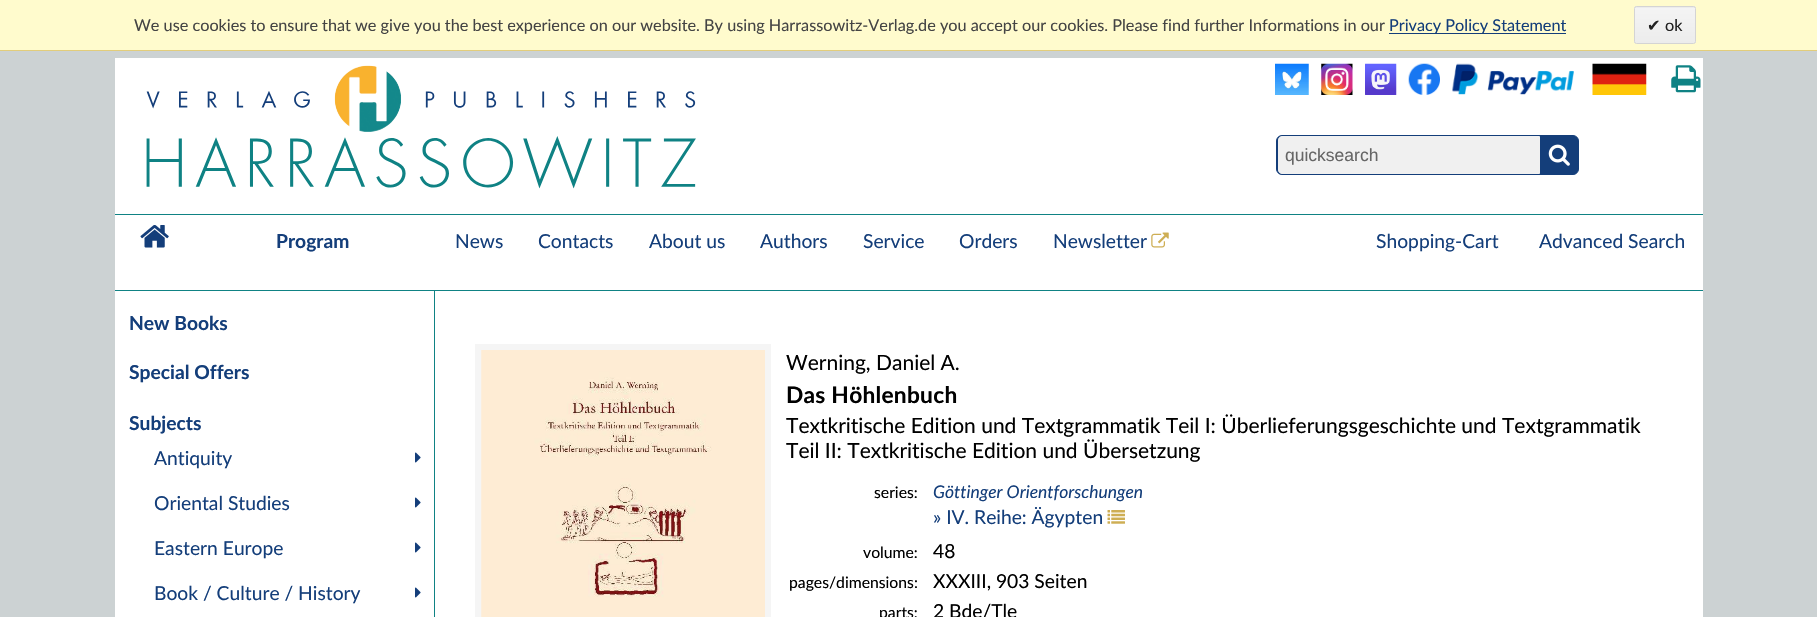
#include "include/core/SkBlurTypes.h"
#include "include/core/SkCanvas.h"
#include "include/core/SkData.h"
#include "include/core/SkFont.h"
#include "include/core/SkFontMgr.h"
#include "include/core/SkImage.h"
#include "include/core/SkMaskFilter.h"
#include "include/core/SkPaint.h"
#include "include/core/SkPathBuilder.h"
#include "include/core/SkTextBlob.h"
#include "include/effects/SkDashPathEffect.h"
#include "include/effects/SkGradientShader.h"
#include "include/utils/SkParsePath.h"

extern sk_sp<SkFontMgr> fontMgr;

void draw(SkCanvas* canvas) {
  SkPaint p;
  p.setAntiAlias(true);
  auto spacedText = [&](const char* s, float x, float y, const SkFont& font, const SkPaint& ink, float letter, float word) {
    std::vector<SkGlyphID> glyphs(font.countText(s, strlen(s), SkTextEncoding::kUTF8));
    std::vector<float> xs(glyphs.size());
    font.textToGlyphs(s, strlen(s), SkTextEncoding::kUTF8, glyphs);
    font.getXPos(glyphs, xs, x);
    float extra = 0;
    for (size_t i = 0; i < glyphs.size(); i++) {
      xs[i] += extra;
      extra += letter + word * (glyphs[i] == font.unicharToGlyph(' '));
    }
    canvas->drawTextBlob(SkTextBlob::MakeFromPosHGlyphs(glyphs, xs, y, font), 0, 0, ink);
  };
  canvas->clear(SkColorSetRGB(204, 210, 211));
  p.setColor(SkColorSetRGB(255, 251, 205));
  canvas->drawRect(SkRect::MakeLTRB(0, 0, 1817, 50), p);
  p.setColor(SkColorSetRGB(226, 205, 123));
  canvas->drawRect(SkRect::MakeLTRB(0, 50, 1817, 51), p);
  p.setColor(SkColorSetRGB(20, 62, 122));
  canvas->drawRect(SkRect::MakeLTRB(1389, 33, 1566, 34), p);
  canvas->save();
  canvas->clipPath(SkPathBuilder().moveTo(1636.5f, 6).lineTo(1693.5f, 6).cubicTo(1695, 6, 1696, 7, 1696, 8.5f).lineTo(1696, 41.5f).cubicTo(1696, 43, 1695, 44, 1693.5f, 44).lineTo(1636.5f, 44).cubicTo(1635, 44, 1634, 43, 1634, 41.5f).lineTo(1634, 8.5f).cubicTo(1634, 7, 1635, 6, 1636.5f, 6).close().detach(), true);
  {
    const SkColor colors[] = {SkColorSetRGB(244, 244, 244), SkColorSetRGB(236, 236, 236)};
    const float stops[] = {0, 1};
    const SkPoint ends[] = {{1665, -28}, {1665, 7.5f}};
    p.setShader(SkGradientShader::MakeLinear(ends, colors, stops, 2, SkTileMode::kClamp));
    p.setAlpha(255);
  }
  canvas->drawRect(SkRect::MakeLTRB(1634, 6, 1696, 8), p);
  canvas->restore();
  {
    const SkColor colors[] = {SkColorSetRGB(244, 244, 244), SkColorSetRGB(236, 236, 236)};
    const float stops[] = {0, 1};
    const SkPoint ends[] = {{1665, 7.5f}, {1665, 43}};
    p.setShader(SkGradientShader::MakeLinear(ends, colors, stops, 2, SkTileMode::kClamp));
    p.setAlpha(255);
  }
  canvas->drawRect(SkRect::MakeLTRB(1634, 8, 1696, 43), p);
  p.setStyle(SkPaint::kStroke_Style);
  p.setStrokeWidth(1);
  p.setShader(nullptr);
  p.setColor(SkColorSetRGB(212, 212, 212));
  canvas->drawRoundRect(SkRect::MakeLTRB(1634.5f, 6.5f, 1695.5f, 43.5f), 2, 2, p);
  p.setStyle(SkPaint::kFill_Style);
  p.setColor(SK_ColorWHITE);
  canvas->drawRect(SkRect::MakeLTRB(115, 58, 1703, 290), p);
  canvas->drawImageRect(SkImages::DeferredFromEncodedData(SkData::MakeFromFileName("images/1.png")), SkRect::MakeLTRB(146, 65, 696, 189), SkSamplingOptions());
  canvas->drawImageRect(SkImages::DeferredFromEncodedData(SkData::MakeFromFileName("images/2.png")), SkRect::MakeLTRB(1275, 63, 1309, 95), SkSamplingOptions());
  canvas->drawImageRect(SkImages::DeferredFromEncodedData(SkData::MakeFromFileName("images/3.png")), SkRect::MakeLTRB(1321, 63, 1353, 95), SkSamplingOptions());
  canvas->drawImageRect(SkImages::DeferredFromEncodedData(SkData::MakeFromFileName("images/4.png")), SkRect::MakeLTRB(1365, 63, 1397, 95), SkSamplingOptions());
  canvas->drawImageRect(SkImages::DeferredFromEncodedData(SkData::MakeFromFileName("images/5.png")), SkRect::MakeLTRB(1408, 63, 1440, 95), SkSamplingOptions());
  canvas->drawImageRect(SkImages::DeferredFromEncodedData(SkData::MakeFromFileName("images/6.png")), SkRect::MakeLTRB(1452, 63, 1574, 95), SkSamplingOptions());
  canvas->drawImageRect(SkImages::DeferredFromEncodedData(SkData::MakeFromFileName("images/7.png")), SkRect::MakeLTRB(1592, 63, 1647, 95), SkSamplingOptions());
  canvas->drawImageRect(SkImages::DeferredFromEncodedData(SkData::MakeFromFileName("images/8.png")), SkRect::MakeLTRB(1671, 65, 1701, 93), SkSamplingOptions());
  p.setColor(SkColorSetRGB(20, 62, 122));
  canvas->drawRoundRect(SkRect::MakeLTRB(1276.5f, 135.5f, 1578.5f, 174.5f), 5.5f, 5.5f, p);
  p.setStyle(SkPaint::kStroke_Style);
  canvas->drawRoundRect(SkRect::MakeLTRB(1276.5f, 135.5f, 1578.5f, 174.5f), 5.5f, 5.5f, p);
  p.setStyle(SkPaint::kFill_Style);
  p.setColor(SkColorSetRGB(240, 240, 240));
  canvas->drawPath(SkPathBuilder().moveTo(1282, 136.5f).lineTo(1539.5f, 136.5f).lineTo(1539.5f, 173.5f).lineTo(1282, 173.5f).cubicTo(1280, 173.5f, 1278.5f, 172, 1278.5f, 170).lineTo(1278.5f, 140).cubicTo(1278.5f, 138, 1280, 136.5f, 1282, 136.5f).close().detach(), p);
  p.setStyle(SkPaint::kStroke_Style);
  canvas->drawPath(SkPathBuilder().moveTo(1282, 136.5f).lineTo(1539.5f, 136.5f).lineTo(1539.5f, 173.5f).lineTo(1282, 173.5f).cubicTo(1280, 173.5f, 1278.5f, 172, 1278.5f, 170).lineTo(1278.5f, 140).cubicTo(1278.5f, 138, 1280, 136.5f, 1282, 136.5f).close().detach(), p);
  canvas->drawImageRect(SkImages::DeferredFromEncodedData(SkData::MakeFromFileName("images/9.png")), SkRect::MakeLTRB(1548, 144, 1570, 166), SkSamplingOptions());
  p.setStyle(SkPaint::kFill_Style);
  p.setColor(SkColorSetRGB(15, 130, 132));
  canvas->drawRect(SkRect::MakeLTRB(115, 214, 1703, 215), p);
  canvas->drawRect(SkRect::MakeLTRB(115, 290, 1703, 291), p);
  canvas->drawImageRect(SkImages::DeferredFromEncodedData(SkData::MakeFromFileName("images/10.png")), SkRect::MakeLTRB(140, 225, 169, 248), SkSamplingOptions());
  canvas->drawImageRect(SkImages::DeferredFromEncodedData(SkData::MakeFromFileName("images/11.png")), SkRect::MakeLTRB(1151, 232, 1169, 248), SkSamplingOptions());
  p.setColor(SK_ColorWHITE);
  canvas->drawRect(SkRect::MakeLTRB(115, 291, 1703, 617), p);
  p.setColor(SkColorSetRGB(15, 130, 132));
  canvas->drawRect(SkRect::MakeLTRB(434, 291, 435, 617), p);
  canvas->drawImageRect(SkImages::DeferredFromEncodedData(SkData::MakeFromFileName("images/12.png")), SkRect::MakeLTRB(415, 452, 421, 463), SkSamplingOptions());
  canvas->drawImageRect(SkImages::DeferredFromEncodedData(SkData::MakeFromFileName("images/12.png")), SkRect::MakeLTRB(415, 497, 421, 508), SkSamplingOptions());
  canvas->drawImageRect(SkImages::DeferredFromEncodedData(SkData::MakeFromFileName("images/12.png")), SkRect::MakeLTRB(415, 542, 421, 553), SkSamplingOptions());
  canvas->drawImageRect(SkImages::DeferredFromEncodedData(SkData::MakeFromFileName("images/12.png")), SkRect::MakeLTRB(415, 587, 421, 598), SkSamplingOptions());
  p.setColor(SkColorSetRGB(245, 245, 245));
  canvas->drawRect(SkRect::MakeLTRB(475, 344, 771, 617), p);
  canvas->drawImageRect(SkImages::DeferredFromEncodedData(SkData::MakeFromFileName("images/13.png")), SkRect::MakeLTRB(481, 350, 765, 617), SkSamplingOptions());
  canvas->drawImageRect(SkImages::DeferredFromEncodedData(SkData::MakeFromFileName("images/14.png")), SkRect::MakeLTRB(1107, 510, 1125, 524), SkSamplingOptions());
  SkFont font1(fontMgr->matchFamilyStyle("Lato", SkFontStyle::Normal()), 16.25f);
  font1.setSubpixel(true);
  p.setColor(SkColorSetRGB(68, 68, 68));
  canvas->drawString("We use cookies to ensure that we give you the best experience on our website. By using Harrassowitz-Verlag.de you accept our cookies. Please find further Informations in our", 134, 31, font1, p);
  p.setColor(SkColorSetRGB(20, 62, 122));
  canvas->drawString("Privacy Policy Statement", 1389, 31, font1, p);
  SkFont font2(fontMgr->matchFamilyStyle("DejaVu Sans", SkFontStyle::Normal()), 16.25f);
  font2.setSubpixel(true);
  p.setColor(SkColorSetRGB(34, 34, 34));
  canvas->drawString("✔", 1647, 31, font2, p);
  canvas->drawString("ok", 1665, 31, font1, p);
  SkFont font3(fontMgr->matchFamilyStyle("Liberation Sans", SkFontStyle::Normal()), 17.5f);
  font3.setSubpixel(true);
  p.setColor(SkColorSetRGB(102, 102, 102));
  canvas->drawString("quicksearch", 1285, 161, font3, p);
  SkFont font4(fontMgr->matchFamilyStyle("Lato", SkFontStyle::Bold()), 19.25f);
  font4.setSubpixel(true);
  p.setColor(SkColorSetRGB(20, 62, 122));
  canvas->drawString("Program", 276, 248, font4, p);
  SkFont font5(fontMgr->matchFamilyStyle("Lato", SkFontStyle::Normal()), 19.25f);
  font5.setSubpixel(true);
  canvas->drawString("News", 455, 248, font5, p);
  canvas->drawString("Contacts", 538, 248, font5, p);
  canvas->drawString("About us", 649, 248, font5, p);
  canvas->drawString("Authors", 760, 248, font5, p);
  canvas->drawString("Service", 863, 248, font5, p);
  canvas->drawString("Orders", 959, 248, font5, p);
  canvas->drawString("Newsletter", 1053, 248, font5, p);
  canvas->drawString("Shopping-Cart", 1376, 248, font5, p);
  canvas->drawString("Advanced Search", 1539, 248, font5, p);
  canvas->drawString("New Books", 129, 330, font4, p);
  canvas->drawString("Special Offers", 129, 379, font4, p);
  canvas->drawString("Subjects", 129, 430, font4, p);
  canvas->drawString("Antiquity", 154, 465, font5, p);
  canvas->drawString("Oriental Studies", 154, 510, font5, p);
  canvas->drawString("Eastern Europe", 154, 555, font5, p);
  canvas->drawString("Book / Culture / History", 154, 600, font5, p);
  SkFont font6(fontMgr->matchFamilyStyle("Lato", SkFontStyle::Normal()), 21);
  font6.setSubpixel(true);
  p.setColor(SK_ColorBLACK);
  canvas->drawString("Werning, Daniel A.", 786, 370, font6, p);
  SkFont font7(fontMgr->matchFamilyStyle("Lato", SkFontStyle::Bold()), 22.75f);
  font7.setSubpixel(true);
  spacedText("Das Höhlenbuch", 786, 403, font7, p, 0.25f, 0);
  canvas->drawString("Textkritische Edition und Textgrammatik Teil I: Überlieferungsgeschichte und Textgrammatik", 786, 433, font6, p);
  canvas->drawString("Teil II: Textkritische Edition und Übersetzung", 786, 458, font6, p);
  SkFont font8(fontMgr->matchFamilyStyle("Lato", SkFontStyle::Normal()), 15.75f);
  font8.setSubpixel(true);
  canvas->drawString("series:", 874, 498, font8, p);
  SkFont font9(fontMgr->matchFamilyStyle("Lato", SkFontStyle::Italic()), 17.5f);
  font9.setSubpixel(true);
  p.setColor(SkColorSetRGB(20, 62, 122));
  canvas->drawString("Göttinger Orientforschungen", 933, 498, font9, p);
  canvas->drawString("» IV. Reihe: Ägypten", 933, 524, font5, p);
  p.setColor(SK_ColorBLACK);
  canvas->drawString("volume:", 863, 558, font8, p);
  canvas->drawString("48", 933, 558, font5, p);
  canvas->drawString("pages/dimensions:", 789, 588, font8, p);
  canvas->drawString("XXXIII, 903 Seiten", 933, 588, font5, p);
  canvas->drawString("parts:", 879, 618, font8, p);
  canvas->drawString("2 Bde/Tle", 933, 618, font5, p);
}
